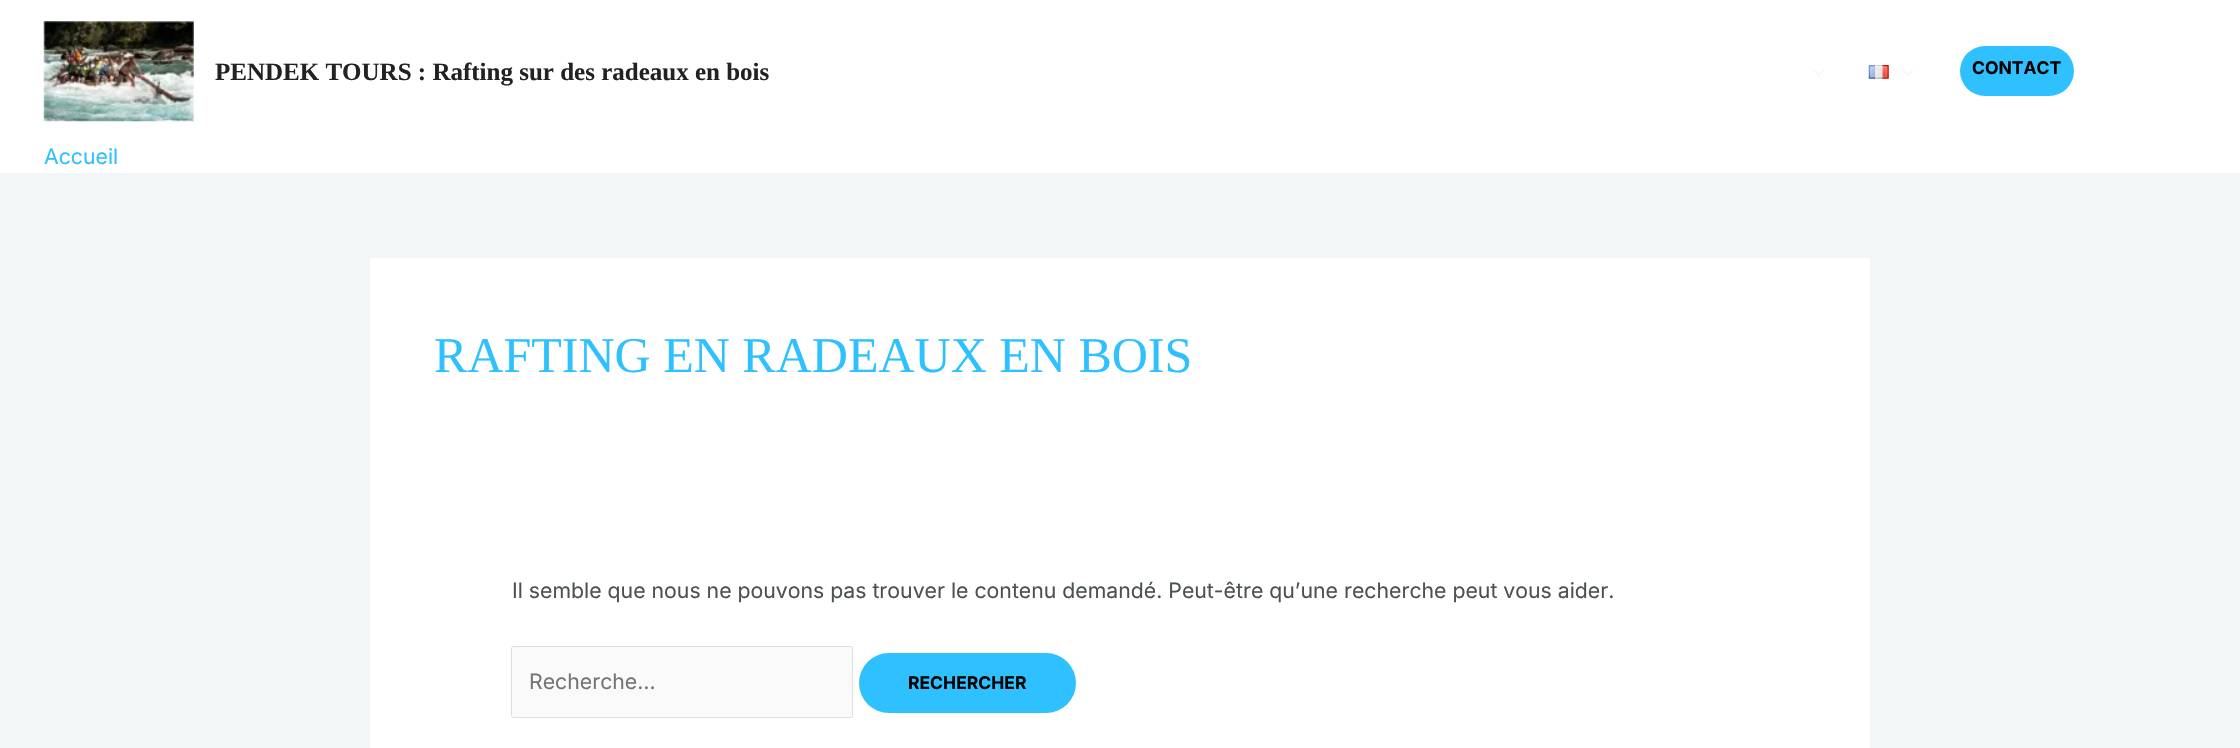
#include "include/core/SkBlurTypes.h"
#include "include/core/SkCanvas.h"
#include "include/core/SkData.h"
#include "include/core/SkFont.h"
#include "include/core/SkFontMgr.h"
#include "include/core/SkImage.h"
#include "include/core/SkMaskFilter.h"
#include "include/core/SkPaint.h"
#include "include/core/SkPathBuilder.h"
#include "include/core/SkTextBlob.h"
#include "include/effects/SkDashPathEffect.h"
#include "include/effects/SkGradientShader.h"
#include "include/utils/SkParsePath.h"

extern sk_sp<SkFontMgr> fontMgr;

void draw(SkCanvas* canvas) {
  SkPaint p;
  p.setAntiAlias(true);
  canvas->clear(SkColorSetRGB(243, 246, 246));
  p.setColor(SK_ColorWHITE);
  canvas->drawRect(SkRect::MakeLTRB(0, 0, 2240, 173), p);
  canvas->drawImageRect(SkImages::DeferredFromEncodedData(SkData::MakeFromFileName("images/1.png")), SkRect::MakeLTRB(43, 21, 194, 122), SkSamplingOptions());
  canvas->drawImageRect(SkImages::DeferredFromEncodedData(SkData::MakeFromFileName("images/2.png")), SkRect::MakeLTRB(1813, 69, 1825, 76), SkSamplingOptions());
  canvas->drawImageRect(SkImages::DeferredFromEncodedData(SkData::MakeFromFileName("images/3.png")), SkRect::MakeLTRB(1868, 65, 1889, 79), SkSamplingOptions());
  canvas->drawImageRect(SkImages::DeferredFromEncodedData(SkData::MakeFromFileName("images/4.png")), SkRect::MakeLTRB(1902, 69, 1913, 76), SkSamplingOptions());
  p.setColor(SkColorSetRGB(47, 193, 255));
  canvas->drawRoundRect(SkRect::MakeLTRB(1960, 46, 2074, 96), 25, 25, p);
  p.setColor(SK_ColorWHITE);
  canvas->drawRect(SkRect::MakeLTRB(370, 258, 1870, 748), p);
  p.setColor(SkColorSetRGB(250, 250, 250));
  canvas->drawRoundRect(SkRect::MakeLTRB(511.5f, 646.5f, 852.5f, 717.5f), 2, 2, p);
  p.setStyle(SkPaint::kStroke_Style);
  p.setStrokeWidth(1);
  p.setColor(SkColorSetRGB(221, 221, 221));
  canvas->drawRoundRect(SkRect::MakeLTRB(511.5f, 646.5f, 852.5f, 717.5f), 2, 2, p);
  p.setStyle(SkPaint::kFill_Style);
  p.setColor(SkColorSetRGB(47, 193, 255));
  canvas->drawRoundRect(SkRect::MakeLTRB(859, 653, 1076, 713), 30, 30, p);
  SkFont font1(fontMgr->matchFamilyStyle("Liberation Serif", SkFontStyle::Bold()), 25);
  font1.setSubpixel(true);
  p.setColor(SkColorSetRGB(34, 34, 34));
  canvas->drawString("PENDEK TOURS : Rafting sur des radeaux en bois", 215, 80, font1, p);
  SkFont font2(fontMgr->matchFamilyStyle("Inter", SkFontStyle::Bold()), 17.5f);
  font2.setSubpixel(true);
  p.setColor(SK_ColorBLACK);
  canvas->drawString("CONTACT", 1972, 74, font2, p);
  SkFont font3(fontMgr->matchFamilyStyle("Inter", SkFontStyle::Normal()), 21.25f);
  font3.setSubpixel(true);
  p.setColor(SkColorSetRGB(47, 193, 255));
  canvas->drawString("Accueil", 44, 164, font3, p);
  SkFont font4(fontMgr->matchFamilyStyle("Liberation Serif", SkFontStyle::Normal()), 50);
  font4.setSubpixel(true);
  canvas->drawString("RAFTING EN RADEAUX EN BOIS", 434, 372, font4, p);
  p.setColor(SkColorSetRGB(76, 82, 83));
  canvas->drawString("Il semble que nous ne pouvons pas trouver le contenu demandé. Peut-être qu’une recherche peut vous aider.", 512, 598, font3, p);
  p.setColor(SkColorSetRGB(117, 117, 117));
  canvas->drawString("Recherche…", 529, 689, font3, p);
  p.setColor(SK_ColorBLACK);
  canvas->drawString("RECHERCHER", 908, 689, font2, p);
}
